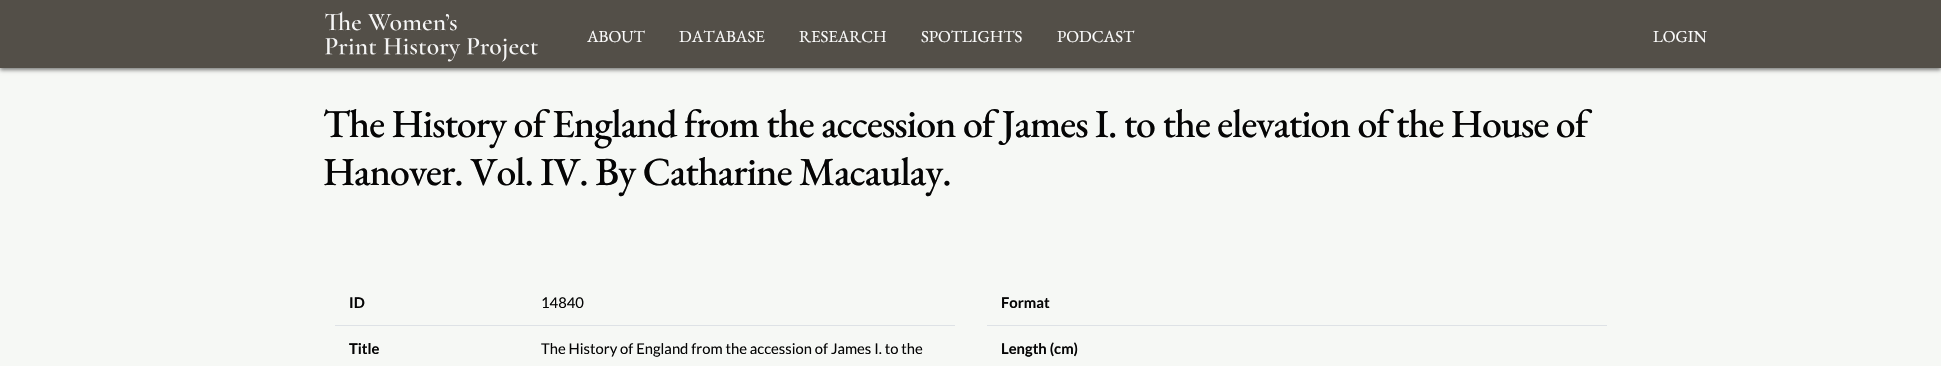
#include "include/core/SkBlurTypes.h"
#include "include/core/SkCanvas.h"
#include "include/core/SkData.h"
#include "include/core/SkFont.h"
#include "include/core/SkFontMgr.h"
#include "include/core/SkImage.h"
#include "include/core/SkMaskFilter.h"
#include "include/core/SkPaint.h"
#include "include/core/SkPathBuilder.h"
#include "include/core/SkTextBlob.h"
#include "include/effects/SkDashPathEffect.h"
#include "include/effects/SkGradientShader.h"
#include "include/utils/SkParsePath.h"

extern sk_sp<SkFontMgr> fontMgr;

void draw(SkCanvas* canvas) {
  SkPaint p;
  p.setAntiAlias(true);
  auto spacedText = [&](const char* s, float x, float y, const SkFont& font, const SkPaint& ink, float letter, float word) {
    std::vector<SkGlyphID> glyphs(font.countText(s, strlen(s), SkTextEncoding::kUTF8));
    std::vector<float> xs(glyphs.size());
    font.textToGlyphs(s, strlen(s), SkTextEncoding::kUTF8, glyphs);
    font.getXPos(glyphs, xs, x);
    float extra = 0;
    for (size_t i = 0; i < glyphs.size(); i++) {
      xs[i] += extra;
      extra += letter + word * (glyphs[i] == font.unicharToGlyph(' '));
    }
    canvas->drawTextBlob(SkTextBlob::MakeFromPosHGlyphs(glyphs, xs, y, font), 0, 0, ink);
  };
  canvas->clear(SkColorSetRGB(246, 248, 245));
  p.setColor(SkColorSetARGB(128, 0, 0, 0));
  p.setMaskFilter(SkMaskFilter::MakeBlur(kNormal_SkBlurStyle, 2));
  canvas->drawRect(SkRect::MakeLTRB(0, 2, 1941, 70), p);
  p.setMaskFilter(nullptr);
  p.setColor(SkColorSetRGB(83, 79, 72));
  canvas->drawRect(SkRect::MakeLTRB(0, 0, 1941, 68), p);
  canvas->drawImageRect(SkImages::DeferredFromEncodedData(SkData::MakeFromFileName("images/1.png")), SkRect::MakeLTRB(325, 11, 539, 62), SkSamplingOptions());
  p.setColor(SkColorSetRGB(222, 226, 230));
  canvas->drawRect(SkRect::MakeLTRB(335, 325, 955, 326), p);
  canvas->drawRect(SkRect::MakeLTRB(987, 325, 1607, 326), p);
  SkFont font1(fontMgr->matchFamilyStyle("EB Garamond", SkFontStyle::Normal()), 16.75f);
  font1.setSubpixel(true);
  p.setColor(SkColorSetRGB(252, 252, 252));
  canvas->drawString("ABOUT", 587, 42, font1, p);
  canvas->drawString("DATABASE", 679, 42, font1, p);
  canvas->drawString("RESEARCH", 799, 42, font1, p);
  canvas->drawString("SPOTLIGHTS", 921, 42, font1, p);
  canvas->drawString("PODCAST", 1057, 42, font1, p);
  canvas->drawString("LOGIN", 1653, 42, font1, p);
  SkFont font2(fontMgr->matchFamilyStyle("EB Garamond", SkFontStyle(500, SkFontStyle::kNormal_Width, SkFontStyle::kUpright_Slant)), 39.8f);
  font2.setSubpixel(true);
  p.setColor(SkColorSetRGB(5, 5, 5));
  spacedText("The History of England from the accession of James I. to the elevation of the House of", 323, 137, font2, p, -1, 0);
  spacedText("Hanover. Vol. IV. By Catharine Macaulay.", 323, 185, font2, p, -1, 0);
  SkFont font3(fontMgr->matchFamilyStyle("Lato", SkFontStyle::Bold()), 14.8f);
  font3.setSubpixel(true);
  canvas->drawString("ID", 349, 308, font3, p);
  SkFont font4(fontMgr->matchFamilyStyle("Lato", SkFontStyle::Normal()), 14.8f);
  font4.setSubpixel(true);
  canvas->drawString("14840", 541, 308, font4, p);
  canvas->drawString("Title", 349, 354, font3, p);
  canvas->drawString("The History of England from the accession of James I. to the", 541, 354, font4, p);
  canvas->drawString("Format", 1001, 308, font3, p);
  canvas->drawString("Length (cm)", 1001, 354, font3, p);
}
